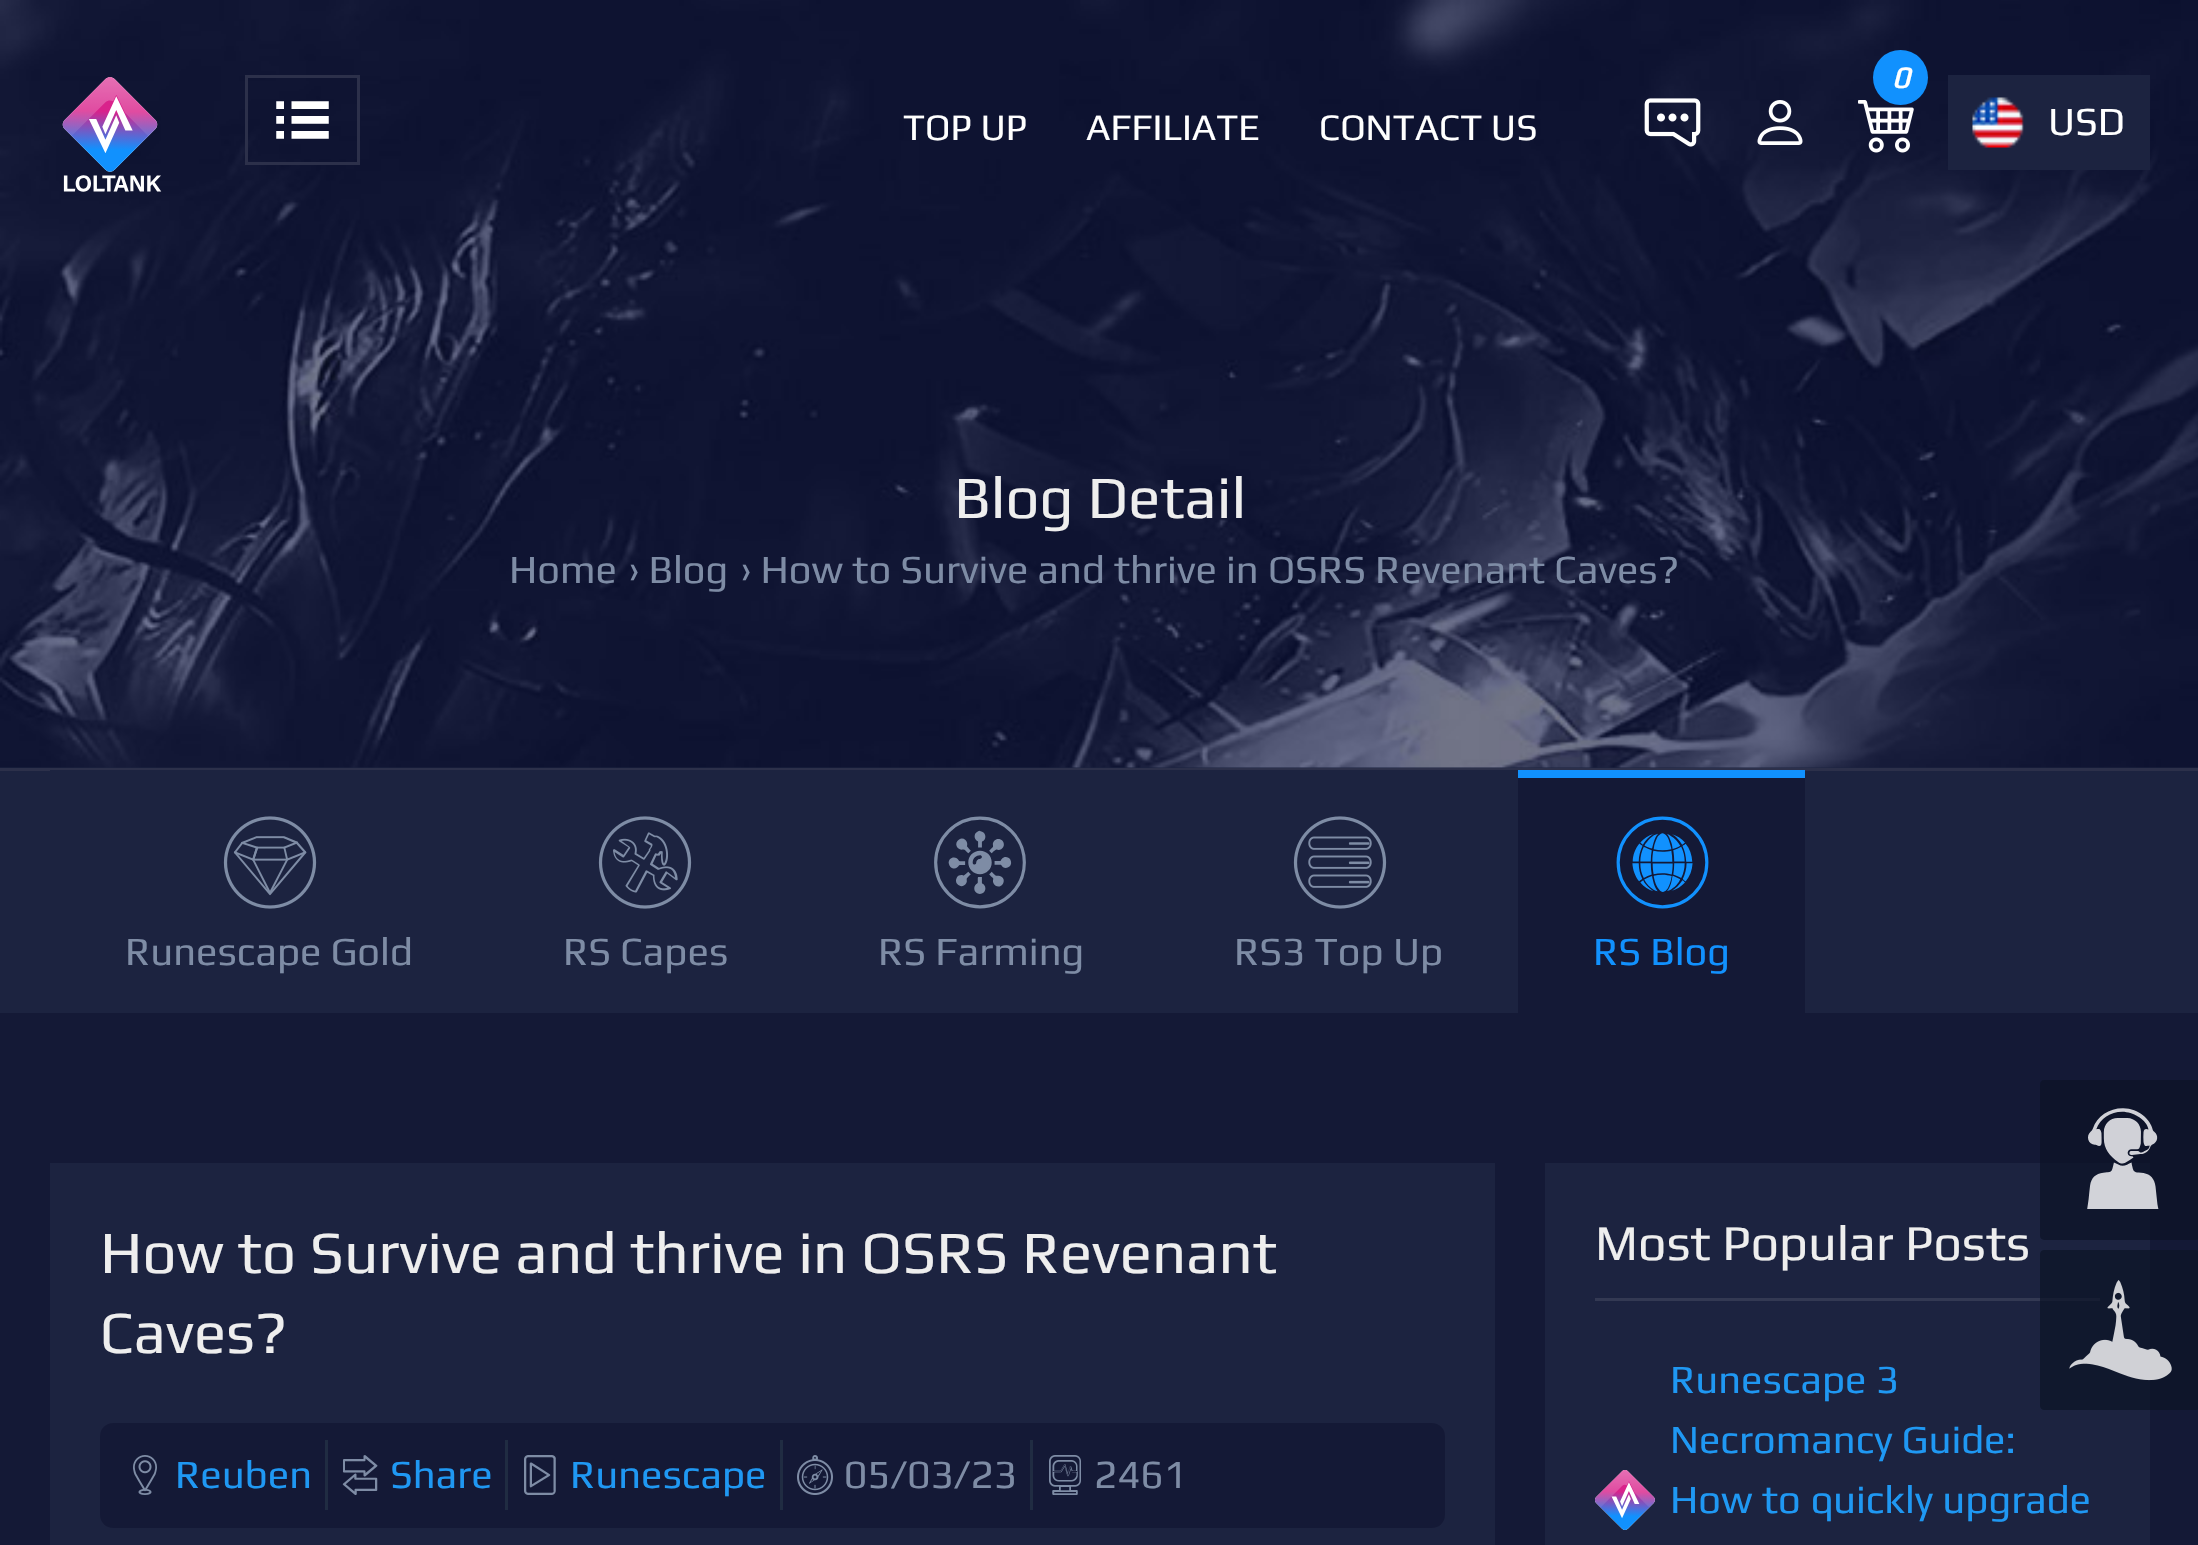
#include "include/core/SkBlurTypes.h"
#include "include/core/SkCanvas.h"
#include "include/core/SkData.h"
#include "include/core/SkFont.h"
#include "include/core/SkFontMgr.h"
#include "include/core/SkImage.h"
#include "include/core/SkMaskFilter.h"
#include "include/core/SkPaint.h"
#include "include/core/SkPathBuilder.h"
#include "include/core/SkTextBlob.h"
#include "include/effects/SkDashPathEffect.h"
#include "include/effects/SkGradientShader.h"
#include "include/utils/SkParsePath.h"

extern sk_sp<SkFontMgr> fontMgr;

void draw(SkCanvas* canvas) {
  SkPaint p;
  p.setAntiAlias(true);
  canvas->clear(SkColorSetRGB(20, 25, 54));
  p.setColor(SkColorSetRGB(28, 35, 64));
  canvas->drawRect(SkRect::MakeLTRB(0, 767, 2198, 768), p);
  canvas->drawImageRect(SkImages::DeferredFromEncodedData(SkData::MakeFromFileName("images/7.png")), SkRect::MakeLTRB(0, 0, 2198, 768), SkSamplingOptions());
  canvas->drawImageRect(SkImages::DeferredFromEncodedData(SkData::MakeFromFileName("images/1.png")), SkRect::MakeLTRB(62, 77, 162, 192), SkSamplingOptions());
  p.setStyle(SkPaint::kStroke_Style);
  p.setStrokeWidth(3);
  p.setColor(SkColorSetRGB(44, 48, 74));
  canvas->drawRect(SkRect::MakeLTRB(246.5f, 76.5f, 358.5f, 163.5f), p);
  canvas->drawImageRect(SkImages::DeferredFromEncodedData(SkData::MakeFromFileName("images/2.png")), SkRect::MakeLTRB(276, 101, 329, 139), SkSamplingOptions());
  canvas->drawImageRect(SkImages::DeferredFromEncodedData(SkData::MakeFromFileName("images/3.png")), SkRect::MakeLTRB(1858, 100, 1914, 153), SkSamplingOptions());
  p.setStyle(SkPaint::kFill_Style);
  p.setColor(SkColorSetRGB(17, 145, 254));
  canvas->drawCircle(1900.5f, 77.5f, 27.5f, p);
  canvas->drawImageRect(SkImages::DeferredFromEncodedData(SkData::MakeFromFileName("images/4.png")), SkRect::MakeLTRB(1644, 98, 1701, 147), SkSamplingOptions());
  canvas->drawImageRect(SkImages::DeferredFromEncodedData(SkData::MakeFromFileName("images/5.png")), SkRect::MakeLTRB(1757, 100, 1803, 145), SkSamplingOptions());
  p.setColor(SkColorSetRGB(28, 35, 64));
  canvas->drawRect(SkRect::MakeLTRB(1948, 75, 2150, 170), p);
  canvas->drawImageRect(SkImages::DeferredFromEncodedData(SkData::MakeFromFileName("images/6.png")), SkRect::MakeLTRB(1972, 97, 2024, 148), SkSamplingOptions());
  canvas->drawRect(SkRect::MakeLTRB(0, 771, 2198, 1013), p);
  p.setColor(SkColorSetRGB(44, 48, 74));
  canvas->drawRect(SkRect::MakeLTRB(0, 768, 2198, 771), p);
  p.setColor(SkColorSetRGB(28, 35, 64));
  canvas->drawRect(SkRect::MakeLTRB(50, 770, 1518, 771), p);
  canvas->drawImageRect(SkImages::DeferredFromEncodedData(SkData::MakeFromFileName("images/8.png")), SkRect::MakeLTRB(223, 816, 317, 909), SkSamplingOptions());
  canvas->drawImageRect(SkImages::DeferredFromEncodedData(SkData::MakeFromFileName("images/9.png")), SkRect::MakeLTRB(598, 816, 692, 909), SkSamplingOptions());
  canvas->drawImageRect(SkImages::DeferredFromEncodedData(SkData::MakeFromFileName("images/10.png")), SkRect::MakeLTRB(934, 816, 1026, 909), SkSamplingOptions());
  canvas->drawImageRect(SkImages::DeferredFromEncodedData(SkData::MakeFromFileName("images/11.png")), SkRect::MakeLTRB(1293, 816, 1387, 909), SkSamplingOptions());
  p.setColor(SkColorSetRGB(20, 25, 54));
  canvas->drawRect(SkRect::MakeLTRB(1518, 778, 1805, 1013), p);
  canvas->drawImageRect(SkImages::DeferredFromEncodedData(SkData::MakeFromFileName("images/12.png")), SkRect::MakeLTRB(1616, 816, 1709, 909), SkSamplingOptions());
  p.setColor(SkColorSetRGB(17, 145, 254));
  canvas->drawRect(SkRect::MakeLTRB(1518, 770, 1805, 778), p);
  p.setColor(SkColorSetRGB(28, 35, 64));
  canvas->drawRect(SkRect::MakeLTRB(50, 1163, 1495, 1545), p);
  p.setColor(SkColorSetRGB(20, 25, 54));
  canvas->drawRoundRect(SkRect::MakeLTRB(100, 1423, 1445, 1528), 13, 13, p);
  canvas->drawImageRect(SkImages::DeferredFromEncodedData(SkData::MakeFromFileName("images/13.png")), SkRect::MakeLTRB(133, 1455, 157, 1495), SkSamplingOptions());
  p.setColor(SkColorSetRGB(32, 44, 66));
  canvas->drawRect(SkRect::MakeLTRB(325, 1440, 328, 1510), p);
  canvas->drawImageRect(SkImages::DeferredFromEncodedData(SkData::MakeFromFileName("images/14.png")), SkRect::MakeLTRB(342, 1455, 378, 1495), SkSamplingOptions());
  canvas->drawRect(SkRect::MakeLTRB(505, 1440, 508, 1510), p);
  canvas->drawImageRect(SkImages::DeferredFromEncodedData(SkData::MakeFromFileName("images/15.png")), SkRect::MakeLTRB(524, 1455, 556, 1495), SkSamplingOptions());
  canvas->drawRect(SkRect::MakeLTRB(780, 1440, 783, 1510), p);
  canvas->drawImageRect(SkImages::DeferredFromEncodedData(SkData::MakeFromFileName("images/16.png")), SkRect::MakeLTRB(797, 1455, 833, 1495), SkSamplingOptions());
  canvas->drawRect(SkRect::MakeLTRB(1030, 1440, 1033, 1510), p);
  canvas->drawImageRect(SkImages::DeferredFromEncodedData(SkData::MakeFromFileName("images/17.png")), SkRect::MakeLTRB(1049, 1455, 1081, 1495), SkSamplingOptions());
  p.setColor(SkColorSetRGB(28, 35, 64));
  canvas->drawRect(SkRect::MakeLTRB(1545, 1163, 2150, 1545), p);
  p.setColor(SkColorSetRGB(51, 57, 83));
  canvas->drawRect(SkRect::MakeLTRB(1595, 1298, 2100, 1301), p);
  canvas->drawImageRect(SkImages::DeferredFromEncodedData(SkData::MakeFromFileName("images/18.png")), SkRect::MakeLTRB(1595, 1470, 1655, 1530), SkSamplingOptions());
  canvas->drawImageRect(SkImages::DeferredFromEncodedData(SkData::MakeFromFileName("images/19.png")), SkRect::MakeLTRB(2040, 1080, 2198, 1240), SkSamplingOptions());
  canvas->drawImageRect(SkImages::DeferredFromEncodedData(SkData::MakeFromFileName("images/20.png")), SkRect::MakeLTRB(2040, 1250, 2198, 1410), SkSamplingOptions());
  SkFont font1(fontMgr->matchFamilyStyle("Play", SkFontStyle::Normal()), 37.5f);
  font1.setSubpixel(true);
  p.setColor(SK_ColorWHITE);
  canvas->drawString("TOP UP", 903, 140, font1, p);
  canvas->drawString("AFFILIATE", 1086, 140, font1, p);
  canvas->drawString("CONTACT US", 1319, 140, font1, p);
  SkFont font2(fontMgr->matchFamilyStyle("Play", SkFontStyle::BoldItalic()), 30);
  font2.setSubpixel(true);
  canvas->drawString("0", 1892, 88, font2, p);
  SkFont font3(fontMgr->matchFamilyStyle("Play", SkFontStyle::Normal()), 40);
  font3.setSubpixel(true);
  canvas->drawString("USD", 2048, 135, font3, p);
  SkFont font4(fontMgr->matchFamilyStyle("Play", SkFontStyle::Normal()), 60);
  font4.setSubpixel(true);
  p.setColor(SkColorSetRGB(238, 238, 238));
  canvas->drawString("Blog Detail", 954, 518, font4, p);
  p.setColor(SkColorSetRGB(126, 140, 165));
  canvas->drawString("Home", 509, 583, font3, p);
  canvas->drawString("› Blog", 629, 583, font3, p);
  canvas->drawString("› How to Survive and thrive in OSRS Revenant Caves?", 741, 583, font3, p);
  canvas->drawString("Runescape Gold", 125, 965, font3, p);
  canvas->drawString("RS Capes", 563, 965, font3, p);
  canvas->drawString("RS Farming", 878, 965, font3, p);
  canvas->drawString("RS3 Top Up", 1234, 965, font3, p);
  p.setColor(SkColorSetRGB(17, 145, 254));
  canvas->drawString("RS Blog", 1593, 965, font3, p);
  p.setColor(SkColorSetRGB(238, 238, 238));
  canvas->drawString("How to Survive and thrive in OSRS Revenant", 100, 1273, font4, p);
  canvas->drawString("Caves?", 100, 1353, font4, p);
  p.setColor(SkColorSetRGB(31, 152, 243));
  canvas->drawString("Reuben", 175, 1488, font3, p);
  canvas->drawString("Share", 390, 1488, font3, p);
  canvas->drawString("Runescape", 570, 1488, font3, p);
  p.setColor(SkColorSetRGB(126, 140, 165));
  canvas->drawString("05/03/23", 844, 1488, font3, p);
  canvas->drawString("2461", 1094, 1488, font3, p);
  SkFont font5(fontMgr->matchFamilyStyle("Play", SkFontStyle::Normal()), 50);
  font5.setSubpixel(true);
  p.setColor(SkColorSetRGB(238, 238, 238));
  canvas->drawString("Most Popular Posts", 1595, 1260, font5, p);
  p.setColor(SkColorSetRGB(31, 152, 243));
  canvas->drawString("Runescape 3", 1670, 1393, font3, p);
  canvas->drawString("Necromancy Guide:", 1670, 1453, font3, p);
  canvas->drawString("How to quickly upgrade", 1670, 1513, font3, p);
}
